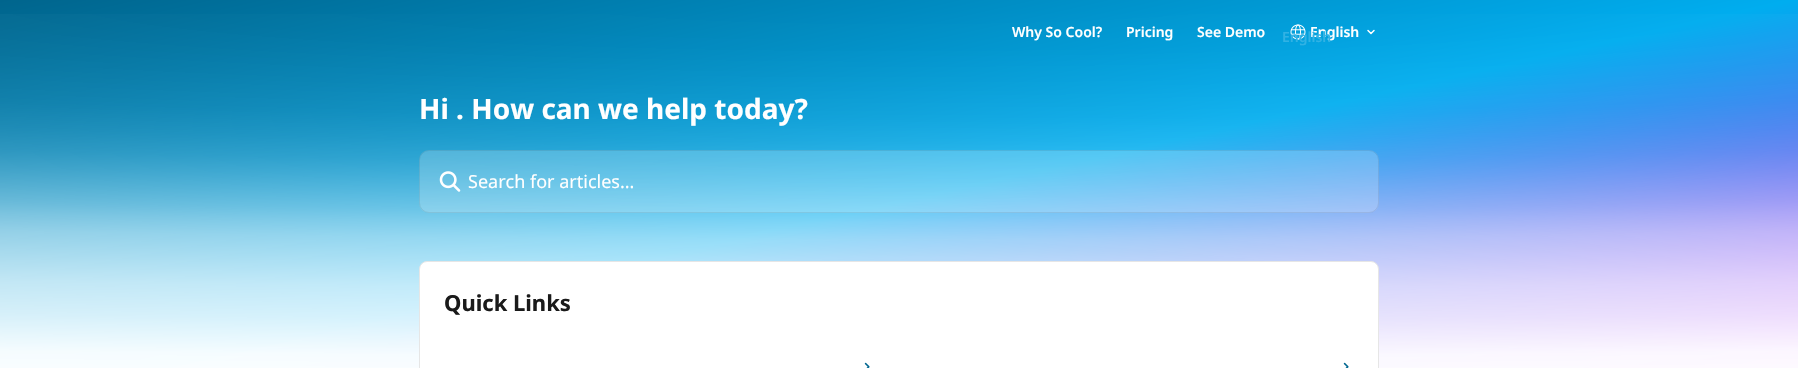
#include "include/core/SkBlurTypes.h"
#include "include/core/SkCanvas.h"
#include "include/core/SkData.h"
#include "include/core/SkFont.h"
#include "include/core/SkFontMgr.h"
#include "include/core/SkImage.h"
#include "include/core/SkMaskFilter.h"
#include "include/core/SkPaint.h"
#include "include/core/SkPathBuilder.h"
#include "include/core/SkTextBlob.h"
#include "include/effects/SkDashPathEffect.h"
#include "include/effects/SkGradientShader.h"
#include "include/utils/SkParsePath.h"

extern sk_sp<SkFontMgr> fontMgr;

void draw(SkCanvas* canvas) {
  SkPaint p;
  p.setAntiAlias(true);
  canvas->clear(SK_ColorWHITE);
  {
    const SkColor colors[] = {SkColorSetRGB(0, 101, 141), SkColorSetRGB(0, 173, 239), SkColorSetRGB(185, 0, 239)};
    const float stops[] = {0, 0.5f, 1};
    const SkPoint ends[] = {{812, -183}, {986, 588}};
    p.setShader(SkGradientShader::MakeLinear(ends, colors, stops, 3, SkTileMode::kClamp));
    p.setAlpha(255);
  }
  canvas->drawRect(SkRect::MakeLTRB(0, 0, 1798, 368), p);
  {
    const SkColor colors[] = {SkColorSetARGB(0, 255, 255, 255), SkColorSetARGB(3, 255, 255, 255), SkColorSetARGB(10, 255, 255, 255), SkColorSetARGB(18, 255, 255, 255), SkColorSetARGB(31, 255, 255, 255), SkColorSetARGB(46, 255, 255, 255), SkColorSetARGB(64, 255, 255, 255), SkColorSetARGB(84, 255, 255, 255), SkColorSetARGB(105, 255, 255, 255), SkColorSetARGB(125, 255, 255, 255), SkColorSetARGB(148, 255, 255, 255), SkColorSetARGB(171, 255, 255, 255), SkColorSetARGB(194, 255, 255, 255), SkColorSetARGB(214, 255, 255, 255), SkColorSetARGB(245, 255, 255, 255), SK_ColorWHITE};
    const float stops[] = {0, 0.12f, 0.21f, 0.29f, 0.35f, 0.4f, 0.44f, 0.48f, 0.52f, 0.55f, 0.59f, 0.65f, 0.71f, 0.79f, 0.88f, 1};
    SkMatrix m = SkMatrix::Translate(899, 0).preScale(5994, 405);
    p.setShader(SkGradientShader::MakeRadial({0, 0}, 1, colors, stops, 16, SkTileMode::kClamp, 0, &m));
    p.setAlpha(255);
  }
  canvas->drawRect(SkRect::MakeLTRB(0, 14, 1798, 368), p);
  canvas->drawImageRect(SkImages::DeferredFromEncodedData(SkData::MakeFromFileName("images/1.png")), SkRect::MakeLTRB(1290, 24, 1306, 40), SkSamplingOptions());
  p.setStyle(SkPaint::kStroke_Style);
  p.setStrokeWidth(1.5f);
  p.setStrokeCap(SkPaint::kRound_Cap);
  p.setStrokeJoin(SkPaint::kRound_Join);
  p.setShader(nullptr);
  p.setColor(SK_ColorWHITE);
  canvas->drawPath(SkPathBuilder().moveTo(1368, 30.5f).lineTo(1371, 33.5f).lineTo(1374, 30.5f).detach(), p);
  p.setStyle(SkPaint::kFill_Style);
  p.setColor(SkColorSetARGB(51, 255, 255, 255));
  canvas->drawRoundRect(SkRect::MakeLTRB(419, 150, 1379, 213), 10, 10, p);
  p.setStyle(SkPaint::kStroke_Style);
  p.setStrokeWidth(1);
  p.setStrokeCap(SkPaint::kButt_Cap);
  p.setStrokeJoin(SkPaint::kMiter_Join);
  p.setColor(SkColorSetARGB(20, 0, 0, 0));
  canvas->drawRoundRect(SkRect::MakeLTRB(419.5f, 150.5f, 1378.5f, 212.5f), 9.5f, 9.5f, p);
  canvas->drawImageRect(SkImages::DeferredFromEncodedData(SkData::MakeFromFileName("images/2.png")), SkRect::MakeLTRB(439, 171, 461, 192), SkSamplingOptions());
  p.setStyle(SkPaint::kFill_Style);
  p.setColor(SK_ColorWHITE);
  canvas->drawRoundRect(SkRect::MakeLTRB(419.5f, 261.5f, 1378.5f, 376.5f), 7.5f, 7.5f, p);
  p.setStyle(SkPaint::kStroke_Style);
  p.setColor(SkColorSetRGB(230, 230, 230));
  canvas->drawRoundRect(SkRect::MakeLTRB(419.5f, 261.5f, 1378.5f, 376.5f), 7.5f, 7.5f, p);
  canvas->drawImageRect(SkImages::DeferredFromEncodedData(SkData::MakeFromFileName("images/3.png")), SkRect::MakeLTRB(864, 362, 870, 368), SkSamplingOptions());
  canvas->drawImageRect(SkImages::DeferredFromEncodedData(SkData::MakeFromFileName("images/3.png")), SkRect::MakeLTRB(1343, 362, 1349, 368), SkSamplingOptions());
  SkFont font1(fontMgr->matchFamilyStyle("Noto Sans", SkFontStyle(600, SkFontStyle::kNormal_Width, SkFontStyle::kUpright_Slant)), 14);
  font1.setSubpixel(true);
  p.setStyle(SkPaint::kFill_Style);
  p.setColor(SK_ColorWHITE);
  canvas->drawString("Why So Cool?", 1012, 37, font1, p);
  canvas->drawString("Pricing", 1126, 37, font1, p);
  canvas->drawString("See Demo", 1197, 37, font1, p);
  canvas->drawString("English", 1310, 37, font1, p);
  p.setColor(SkColorSetRGB(49, 178, 228));
  canvas->drawString("English", 1282, 42, font1, p);
  SkFont font2(fontMgr->matchFamilyStyle("Noto Sans", SkFontStyle::Bold()), 28);
  font2.setSubpixel(true);
  p.setColor(SK_ColorWHITE);
  canvas->drawString("Hi . How can we help today?", 419, 119, font2, p);
  SkFont font3(fontMgr->matchFamilyStyle("Noto Sans", SkFontStyle::Normal()), 18);
  font3.setSubpixel(true);
  canvas->drawString("Search for articles...", 468, 188, font3, p);
  SkFont font4(fontMgr->matchFamilyStyle("Noto Sans", SkFontStyle::Bold()), 22);
  font4.setSubpixel(true);
  p.setColor(SkColorSetRGB(26, 26, 26));
  canvas->drawString("Quick Links", 444, 311, font4, p);
}
